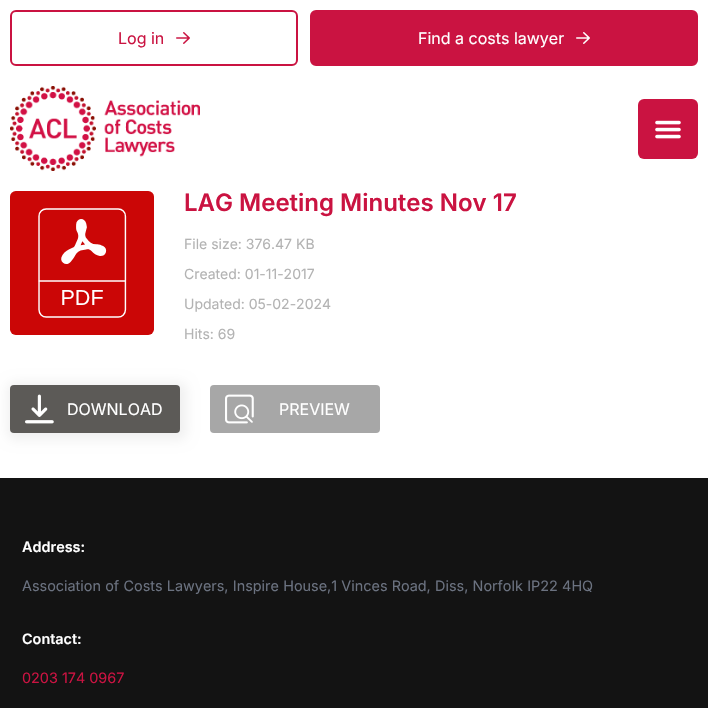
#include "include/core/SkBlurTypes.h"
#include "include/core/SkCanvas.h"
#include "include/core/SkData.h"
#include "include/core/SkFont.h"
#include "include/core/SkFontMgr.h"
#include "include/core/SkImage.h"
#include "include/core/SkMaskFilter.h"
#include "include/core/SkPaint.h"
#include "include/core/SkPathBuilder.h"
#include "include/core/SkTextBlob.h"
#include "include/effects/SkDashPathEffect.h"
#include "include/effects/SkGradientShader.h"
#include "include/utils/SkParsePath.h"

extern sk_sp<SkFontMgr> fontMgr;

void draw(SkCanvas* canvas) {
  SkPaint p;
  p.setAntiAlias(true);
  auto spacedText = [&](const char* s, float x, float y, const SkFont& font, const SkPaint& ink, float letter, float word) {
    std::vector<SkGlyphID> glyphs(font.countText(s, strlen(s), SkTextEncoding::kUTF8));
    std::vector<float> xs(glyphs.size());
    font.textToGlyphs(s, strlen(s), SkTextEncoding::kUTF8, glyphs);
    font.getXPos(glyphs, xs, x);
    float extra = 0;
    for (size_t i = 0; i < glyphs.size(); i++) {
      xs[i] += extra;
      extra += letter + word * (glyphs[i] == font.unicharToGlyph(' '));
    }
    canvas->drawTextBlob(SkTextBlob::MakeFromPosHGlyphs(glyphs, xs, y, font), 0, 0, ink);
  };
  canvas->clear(SK_ColorWHITE);
  p.setStyle(SkPaint::kStroke_Style);
  p.setStrokeWidth(2);
  p.setColor(SkColorSetRGB(202, 19, 65));
  canvas->drawRoundRect(SkRect::MakeLTRB(11, 11, 297, 65), 5, 5, p);
  canvas->drawImageRect(SkImages::DeferredFromEncodedData(SkData::MakeFromFileName("images/1.png")), SkRect::MakeLTRB(176, 32, 190, 44), SkSamplingOptions());
  p.setStyle(SkPaint::kFill_Style);
  canvas->drawRoundRect(SkRect::MakeLTRB(311, 11, 697, 65), 5, 5, p);
  p.setStyle(SkPaint::kStroke_Style);
  canvas->drawRoundRect(SkRect::MakeLTRB(311, 11, 697, 65), 5, 5, p);
  canvas->drawImageRect(SkImages::DeferredFromEncodedData(SkData::MakeFromFileName("images/2.png")), SkRect::MakeLTRB(576, 32, 590, 44), SkSamplingOptions());
  canvas->drawImageRect(SkImages::DeferredFromEncodedData(SkData::MakeFromFileName("images/3.png")), SkRect::MakeLTRB(10, 86, 200, 171), SkSamplingOptions());
  p.setStyle(SkPaint::kFill_Style);
  canvas->drawRoundRect(SkRect::MakeLTRB(638, 99, 698, 159), 6, 6, p);
  canvas->drawImageRect(SkImages::DeferredFromEncodedData(SkData::MakeFromFileName("images/4.png")), SkRect::MakeLTRB(655, 120, 681, 139), SkSamplingOptions());
  canvas->drawImageRect(SkImages::DeferredFromEncodedData(SkData::MakeFromFileName("images/5.png")), SkRect::MakeLTRB(10, 191, 154, 335), SkSamplingOptions());
  p.setColor(SkColorSetRGB(240, 240, 240));
  p.setMaskFilter(SkMaskFilter::MakeBlur(kNormal_SkBlurStyle, 6));
  canvas->drawRoundRect(SkRect::MakeLTRB(7, 382, 187, 440), 9, 9, p);
  p.setMaskFilter(nullptr);
  p.setColor(SkColorSetRGB(92, 90, 87));
  canvas->drawRoundRect(SkRect::MakeLTRB(10, 385, 180, 433), 4, 4, p);
  canvas->drawImageRect(SkImages::DeferredFromEncodedData(SkData::MakeFromFileName("images/6.png")), SkRect::MakeLTRB(25, 394, 54, 424), SkSamplingOptions());
  p.setColor(SkColorSetRGB(167, 167, 167));
  canvas->drawRoundRect(SkRect::MakeLTRB(210, 385, 380, 433), 4, 4, p);
  canvas->drawImageRect(SkImages::DeferredFromEncodedData(SkData::MakeFromFileName("images/7.png")), SkRect::MakeLTRB(225, 394, 254, 424), SkSamplingOptions());
  p.setColor(SkColorSetRGB(19, 19, 19));
  canvas->drawRect(SkRect::MakeLTRB(0, 478, 708, 708), p);
  SkFont font1(fontMgr->matchFamilyStyle("Inter", SkFontStyle::Normal()), 16);
  font1.setSubpixel(true);
  p.setColor(SkColorSetRGB(202, 19, 65));
  canvas->drawString("Log in", 118, 44, font1, p);
  p.setColor(SK_ColorWHITE);
  canvas->drawString("Find a costs lawyer", 418, 44, font1, p);
  SkFont font2(fontMgr->matchFamilyStyle("Inter", SkFontStyle(600, SkFontStyle::kNormal_Width, SkFontStyle::kUpright_Slant)), 24);
  font2.setSubpixel(true);
  p.setColor(SkColorSetRGB(202, 19, 65));
  canvas->drawString("LAG Meeting Minutes Nov 17", 184, 211, font2, p);
  SkFont font3(fontMgr->matchFamilyStyle("Inter", SkFontStyle::Normal()), 14);
  font3.setSubpixel(true);
  p.setColor(SkColorSetRGB(179, 179, 179));
  canvas->drawString("File size: 376.47 KB", 184, 249, font3, p);
  canvas->drawString("Created: 01-11-2017", 184, 279, font3, p);
  canvas->drawString("Updated: 05-02-2024", 184, 309, font3, p);
  canvas->drawString("Hits: 69", 184, 339, font3, p);
  p.setColor(SK_ColorWHITE);
  canvas->drawString("DOWNLOAD", 67, 415, font1, p);
  canvas->drawString("PREVIEW", 279, 415, font1, p);
  SkFont font4(fontMgr->matchFamilyStyle("Inter", SkFontStyle(600, SkFontStyle::kNormal_Width, SkFontStyle::kUpright_Slant)), 14.4f);
  font4.setSubpixel(true);
  canvas->drawString("Address:", 22, 552, font4, p);
  SkFont font5(fontMgr->matchFamilyStyle("Inter", SkFontStyle::Normal()), 14.4f);
  font5.setSubpixel(true);
  p.setColor(SkColorSetRGB(107, 114, 128));
  spacedText("Association of Costs Lawyers, Inspire House,1 Vinces Road, Diss, Norfolk IP22 4HQ", 22, 591, font5, p, 0, 0.25f);
  p.setColor(SK_ColorWHITE);
  canvas->drawString("Contact:", 22, 644, font4, p);
  p.setColor(SkColorSetRGB(202, 19, 65));
  canvas->drawString("0203 174 0967", 22, 683, font5, p);
}
